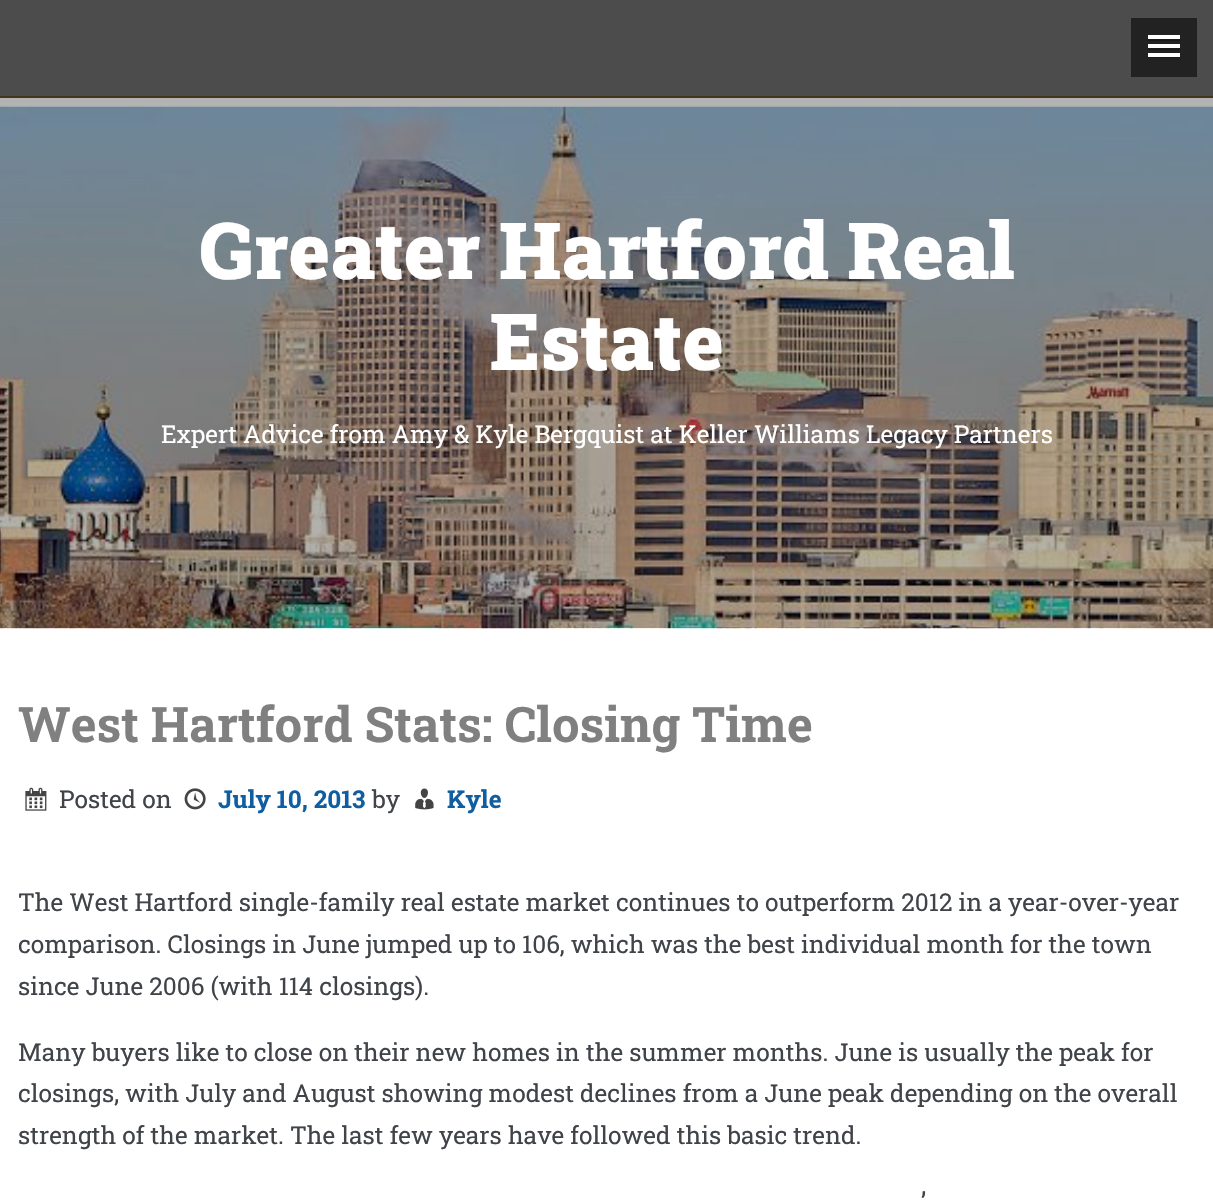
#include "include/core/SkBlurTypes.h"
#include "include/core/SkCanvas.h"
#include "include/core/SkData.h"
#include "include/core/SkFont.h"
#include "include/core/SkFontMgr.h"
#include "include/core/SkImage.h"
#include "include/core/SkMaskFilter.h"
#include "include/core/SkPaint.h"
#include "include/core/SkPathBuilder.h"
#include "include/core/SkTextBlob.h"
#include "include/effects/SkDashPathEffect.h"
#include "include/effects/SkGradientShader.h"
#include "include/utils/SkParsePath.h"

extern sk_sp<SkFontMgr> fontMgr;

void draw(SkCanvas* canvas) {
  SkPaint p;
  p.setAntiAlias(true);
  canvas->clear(SK_ColorWHITE);
  p.setColor(SkColorSetRGB(179, 179, 179));
  canvas->drawRect(SkRect::MakeLTRB(0, 98, 1213, 107), p);
  p.setColor(SkColorSetRGB(76, 76, 76));
  canvas->drawRect(SkRect::MakeLTRB(0, 0, 1213, 96), p);
  p.setColor(SkColorSetRGB(34, 34, 34));
  canvas->drawRect(SkRect::MakeLTRB(1131, 18, 1197, 77), p);
  p.setColor(SkColorSetRGB(26, 26, 26));
  canvas->drawPath(SkPathBuilder().moveTo(1148, 38.5f).lineTo(1148, 41).lineTo(1180, 41).lineTo(1180, 37).lineTo(1179.5f, 37).lineTo(1179.5f, 38.5f).close().detach(), p);
  p.setColor(SK_ColorWHITE);
  canvas->drawRect(SkRect::MakeLTRB(1148, 35, 1180, 39), p);
  p.setColor(SkColorSetRGB(26, 26, 26));
  canvas->drawPath(SkPathBuilder().moveTo(1148, 47).lineTo(1148, 50).lineTo(1180, 50).lineTo(1180, 46).lineTo(1179.5f, 46).lineTo(1179.5f, 47).close().detach(), p);
  p.setColor(SK_ColorWHITE);
  canvas->drawRect(SkRect::MakeLTRB(1148, 44, 1180, 48), p);
  p.setColor(SkColorSetRGB(26, 26, 26));
  canvas->drawPath(SkPathBuilder().moveTo(1148, 56).lineTo(1148, 58).lineTo(1180, 58).lineTo(1180, 54).lineTo(1179.5f, 54).lineTo(1179.5f, 56).close().detach(), p);
  p.setColor(SK_ColorWHITE);
  canvas->drawRect(SkRect::MakeLTRB(1148, 53, 1180, 57), p);
  p.setColor(SkColorSetRGB(68, 52, 27));
  canvas->drawRect(SkRect::MakeLTRB(0, 96, 1213, 98), p);
  canvas->drawImageRect(SkImages::DeferredFromEncodedData(SkData::MakeFromFileName("images/1.png")), SkRect::MakeLTRB(0, 106, 1213, 629), SkSamplingOptions());
  canvas->drawImageRect(SkImages::DeferredFromEncodedData(SkData::MakeFromFileName("images/2.png")), SkRect::MakeLTRB(25, 787, 47, 811), SkSamplingOptions());
  canvas->drawImageRect(SkImages::DeferredFromEncodedData(SkData::MakeFromFileName("images/3.png")), SkRect::MakeLTRB(184, 788, 206, 810), SkSamplingOptions());
  canvas->drawImageRect(SkImages::DeferredFromEncodedData(SkData::MakeFromFileName("images/4.png")), SkRect::MakeLTRB(415, 788, 434, 810), SkSamplingOptions());
  SkFont font1(fontMgr->matchFamilyStyle("Roboto Slab", SkFontStyle(900, SkFontStyle::kNormal_Width, SkFontStyle::kUpright_Slant)), 78.75f);
  font1.setSubpixel(true);
  p.setColor(SK_ColorWHITE);
  canvas->drawString("Greater Hartford Real", 200, 279, font1, p);
  canvas->drawString("Estate", 490, 370, font1, p);
  SkFont font2(fontMgr->matchFamilyStyle("Roboto Slab", SkFontStyle::Normal()), 24.5f);
  font2.setSubpixel(true);
  canvas->drawString("Expert Advice from Amy & Kyle Bergquist at Keller Williams Legacy Partners", 161, 443, font2, p);
  SkFont font3(fontMgr->matchFamilyStyle("Roboto Slab", SkFontStyle::Bold()), 49);
  font3.setSubpixel(true);
  p.setColor(SkColorSetRGB(128, 128, 128));
  canvas->drawString("West Hartford Stats: Closing Time", 18, 742, font3, p);
  p.setColor(SkColorSetRGB(64, 68, 73));
  canvas->drawString("Posted on", 59, 808, font2, p);
  SkFont font4(fontMgr->matchFamilyStyle("Roboto Slab", SkFontStyle::Bold()), 24.5f);
  font4.setSubpixel(true);
  p.setColor(SkColorSetRGB(16, 94, 162));
  canvas->drawString("July 10, 2013", 218, 808, font4, p);
  p.setColor(SkColorSetRGB(64, 68, 73));
  canvas->drawString("by", 372, 808, font2, p);
  p.setColor(SkColorSetRGB(16, 94, 162));
  canvas->drawString("Kyle", 447, 808, font4, p);
  p.setColor(SkColorSetRGB(64, 68, 73));
  canvas->drawString("The West Hartford single-family real estate market continues to outperform 2012 in a year-over-year", 18, 911, font2, p);
  canvas->drawString("comparison. Closings in June jumped up to 106, which was the best individual month for the town", 18, 953, font2, p);
  canvas->drawString("since June 2006 (with 114 closings).", 18, 995, font2, p);
  canvas->drawString("Many buyers like to close on their new homes in the summer months. June is usually the peak for", 18, 1061, font2, p);
  canvas->drawString("closings, with July and August showing modest declines from a June peak depending on the overall", 18, 1102, font2, p);
  canvas->drawString("strength of the market. The last few years have followed this basic trend.", 18, 1144, font2, p);
  canvas->drawString("’", 921, 1210, font2, p);
}
